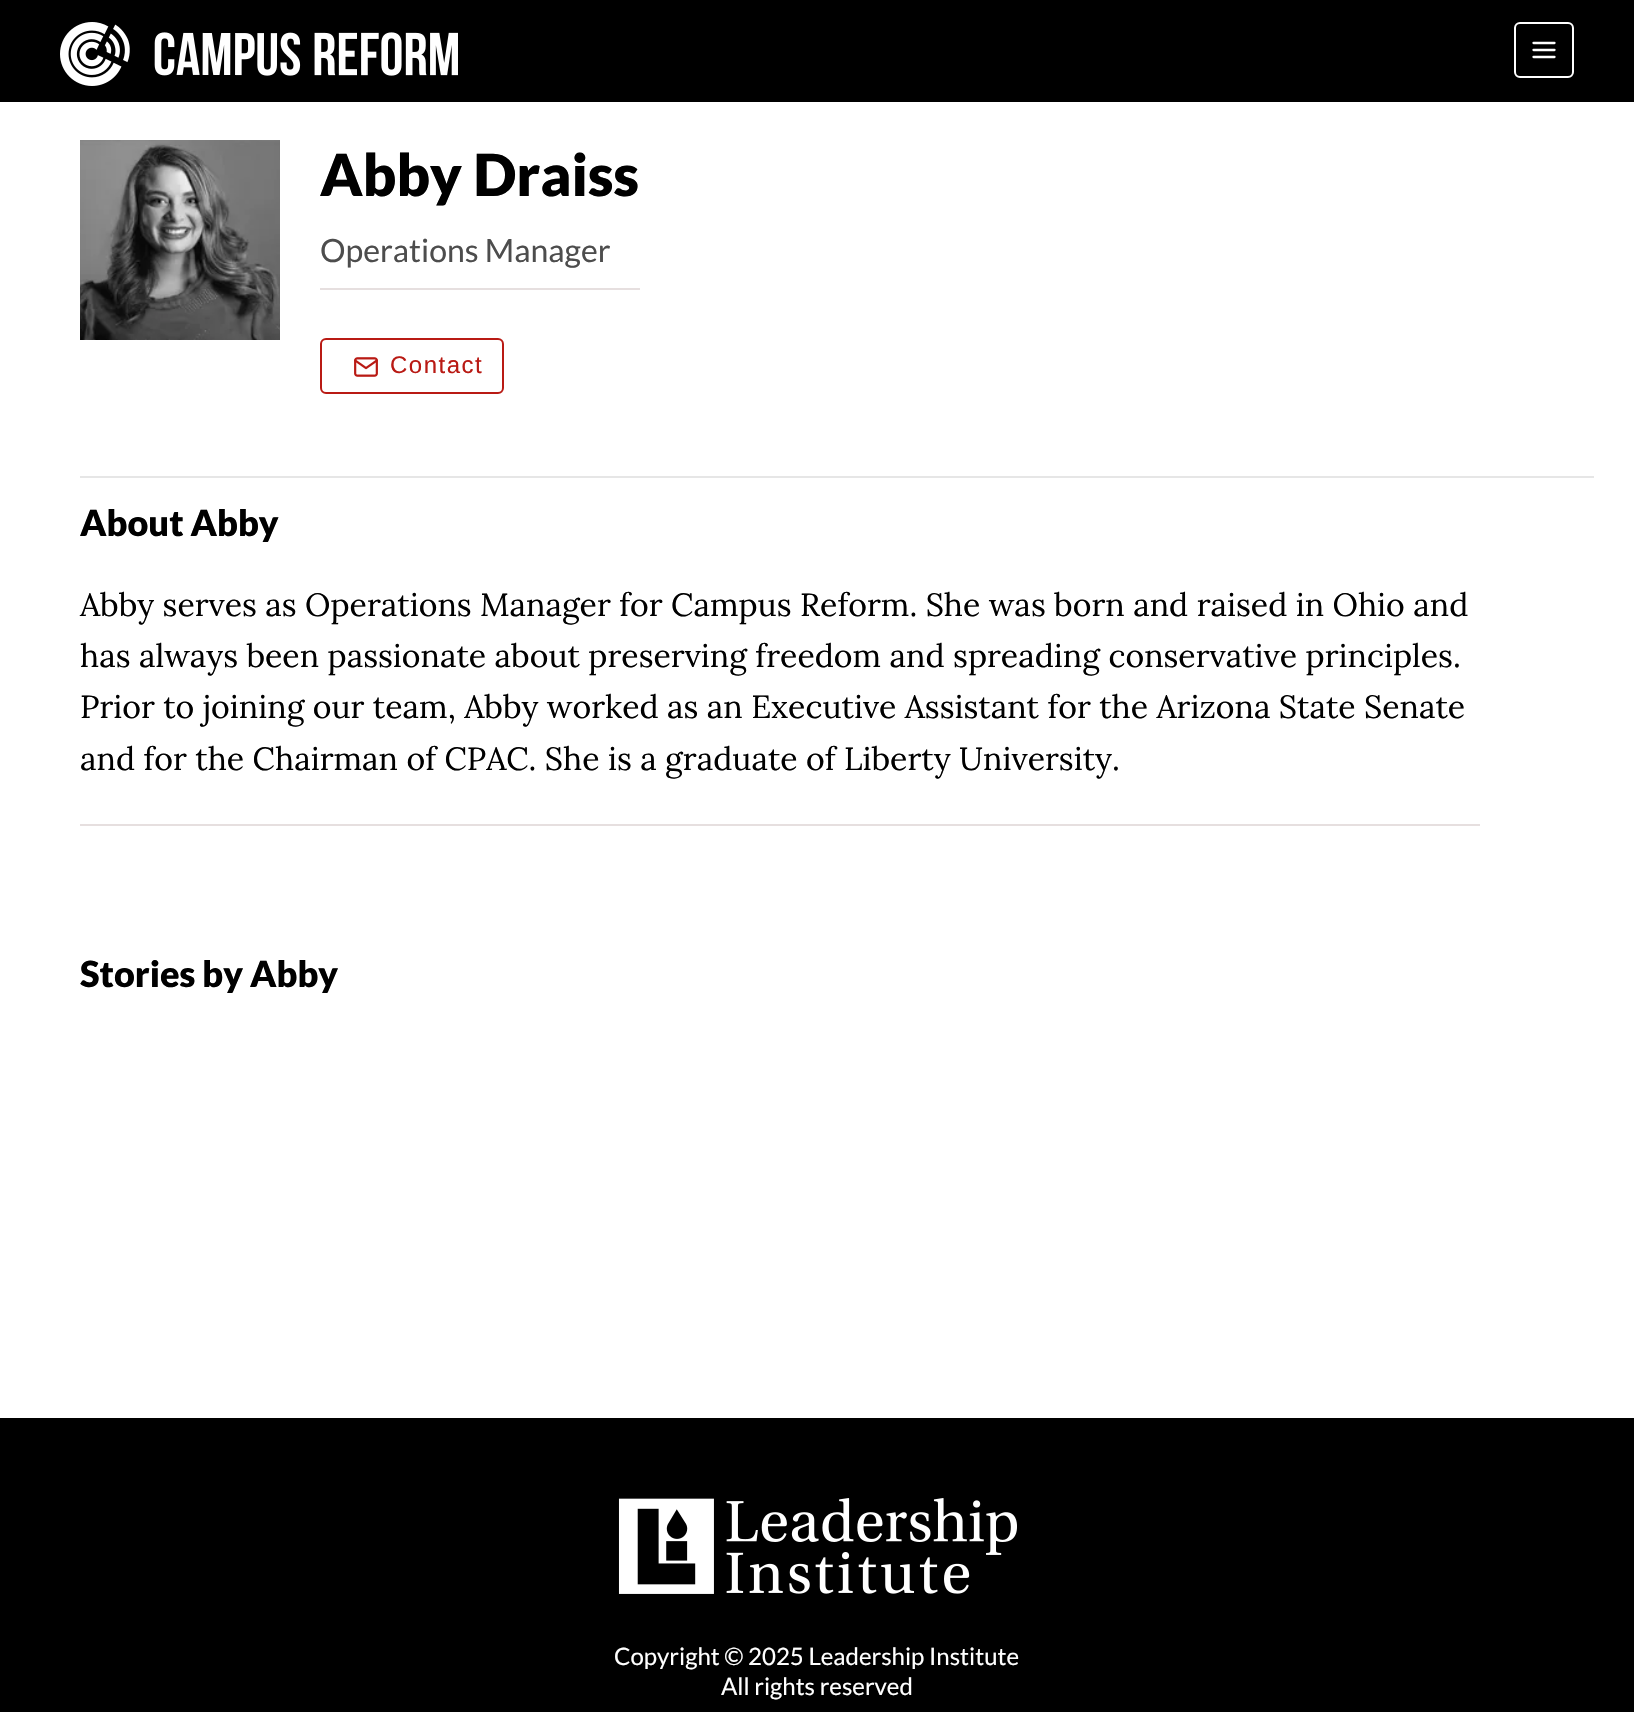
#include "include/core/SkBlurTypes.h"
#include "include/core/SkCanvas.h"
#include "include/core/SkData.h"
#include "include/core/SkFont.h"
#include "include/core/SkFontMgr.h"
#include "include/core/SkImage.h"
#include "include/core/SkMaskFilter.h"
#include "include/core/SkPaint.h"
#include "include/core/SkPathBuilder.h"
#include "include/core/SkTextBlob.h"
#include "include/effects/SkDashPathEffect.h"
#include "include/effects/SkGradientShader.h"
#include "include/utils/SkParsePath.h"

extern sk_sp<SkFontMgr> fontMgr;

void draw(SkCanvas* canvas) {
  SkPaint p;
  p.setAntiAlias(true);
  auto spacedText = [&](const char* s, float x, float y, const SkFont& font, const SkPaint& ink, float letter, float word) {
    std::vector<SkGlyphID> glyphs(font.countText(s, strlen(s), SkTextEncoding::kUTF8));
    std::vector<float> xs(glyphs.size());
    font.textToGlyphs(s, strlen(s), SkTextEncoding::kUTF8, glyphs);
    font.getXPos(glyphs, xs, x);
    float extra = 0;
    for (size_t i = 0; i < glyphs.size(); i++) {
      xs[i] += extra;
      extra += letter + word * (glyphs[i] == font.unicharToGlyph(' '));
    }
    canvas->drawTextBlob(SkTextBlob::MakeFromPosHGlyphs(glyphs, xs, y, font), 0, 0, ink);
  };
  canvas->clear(SK_ColorWHITE);
  p.setColor(SK_ColorBLACK);
  canvas->drawRect(SkRect::MakeLTRB(0, 0, 1634, 102), p);
  canvas->drawImageRect(SkImages::DeferredFromEncodedData(SkData::MakeFromFileName("images/1.png")), SkRect::MakeLTRB(60, 22, 458, 86), SkSamplingOptions());
  p.setStyle(SkPaint::kStroke_Style);
  p.setStrokeWidth(2);
  p.setColor(SK_ColorWHITE);
  canvas->drawRoundRect(SkRect::MakeLTRB(1515, 23, 1573, 77), 5, 5, p);
  p.setStrokeWidth(2.3f);
  p.setStrokeCap(SkPaint::kRound_Cap);
  p.setStrokeJoin(SkPaint::kRound_Join);
  canvas->drawPath(SkPathBuilder().moveTo(1533.5f, 50).lineTo(1554.5f, 50).moveTo(1533.5f, 43).lineTo(1554.5f, 43).moveTo(1533.5f, 57).lineTo(1554.5f, 57).detach(), p);
  p.setStyle(SkPaint::kFill_Style);
  p.setColor(SkColorSetRGB(230, 230, 230));
  canvas->drawRect(SkRect::MakeLTRB(80, 476, 1594, 478), p);
  canvas->drawImageRect(SkImages::DeferredFromEncodedData(SkData::MakeFromFileName("images/2.png")), SkRect::MakeLTRB(80, 140, 280, 340), SkSamplingOptions());
  p.setColor(SkColorSetRGB(230, 223, 223));
  canvas->drawRect(SkRect::MakeLTRB(320, 288, 640, 290), p);
  p.setStyle(SkPaint::kStroke_Style);
  p.setStrokeWidth(2);
  p.setStrokeCap(SkPaint::kButt_Cap);
  p.setStrokeJoin(SkPaint::kMiter_Join);
  p.setColor(SkColorSetRGB(185, 26, 20));
  canvas->drawRoundRect(SkRect::MakeLTRB(321, 339, 503, 393), 5, 5, p);
  canvas->drawImageRect(SkImages::DeferredFromEncodedData(SkData::MakeFromFileName("images/3.png")), SkRect::MakeLTRB(354, 357, 378, 377), SkSamplingOptions());
  p.setStyle(SkPaint::kFill_Style);
  p.setColor(SkColorSetRGB(230, 223, 223));
  canvas->drawRect(SkRect::MakeLTRB(80, 824, 1480, 826), p);
  p.setColor(SK_ColorBLACK);
  canvas->drawRect(SkRect::MakeLTRB(0, 1418, 1634, 1712), p);
  canvas->drawImageRect(SkImages::DeferredFromEncodedData(SkData::MakeFromFileName("images/4.png")), SkRect::MakeLTRB(618, 1498, 1017, 1594), SkSamplingOptions());
  SkFont font1(fontMgr->matchFamilyStyle("Lato", SkFontStyle(900, SkFontStyle::kNormal_Width, SkFontStyle::kUpright_Slant)), 58);
  font1.setSubpixel(true);
  canvas->drawString("Abby Draiss", 320, 196, font1, p);
  SkFont font2(fontMgr->matchFamilyStyle("Lato", SkFontStyle::Normal()), 32);
  font2.setSubpixel(true);
  p.setColor(SkColorSetRGB(77, 77, 77));
  canvas->drawString("Operations Manager", 320, 262, font2, p);
  SkFont font3(fontMgr->matchFamilyStyle("Liberation Sans", SkFontStyle::Normal()), 24);
  font3.setSubpixel(true);
  p.setColor(SkColorSetRGB(185, 26, 20));
  spacedText("Contact", 390, 373, font3, p, 1.5f, 0);
  SkFont font4(fontMgr->matchFamilyStyle("Lato", SkFontStyle(900, SkFontStyle::kNormal_Width, SkFontStyle::kUpright_Slant)), 36);
  font4.setSubpixel(true);
  p.setColor(SK_ColorBLACK);
  canvas->drawString("About Abby", 80, 536, font4, p);
  SkFont font5(fontMgr->matchFamilyStyle("Lora", SkFontStyle::Normal()), 32);
  font5.setSubpixel(true);
  canvas->drawString("Abby serves as Operations Manager for Campus Reform. She was born and raised in Ohio and", 80, 616, font5, p);
  canvas->drawString("has always been passionate about preserving freedom and spreading conservative principles.", 80, 667, font5, p);
  canvas->drawString("Prior to joining our team, Abby worked as an Executive Assistant for the Arizona State Senate", 80, 718, font5, p);
  canvas->drawString("and for the Chairman of CPAC. She is a graduate of Liberty University.", 80, 770, font5, p);
  canvas->drawString("Stories by Abby", 80, 987, font4, p);
  SkFont font6(fontMgr->matchFamilyStyle("Lato", SkFontStyle::Normal()), 24);
  font6.setSubpixel(true);
  p.setColor(SK_ColorWHITE);
  canvas->drawString("Copyright © 2025 Leadership Institute", 614, 1665, font6, p);
  canvas->drawString("All rights reserved", 721, 1695, font6, p);
}
